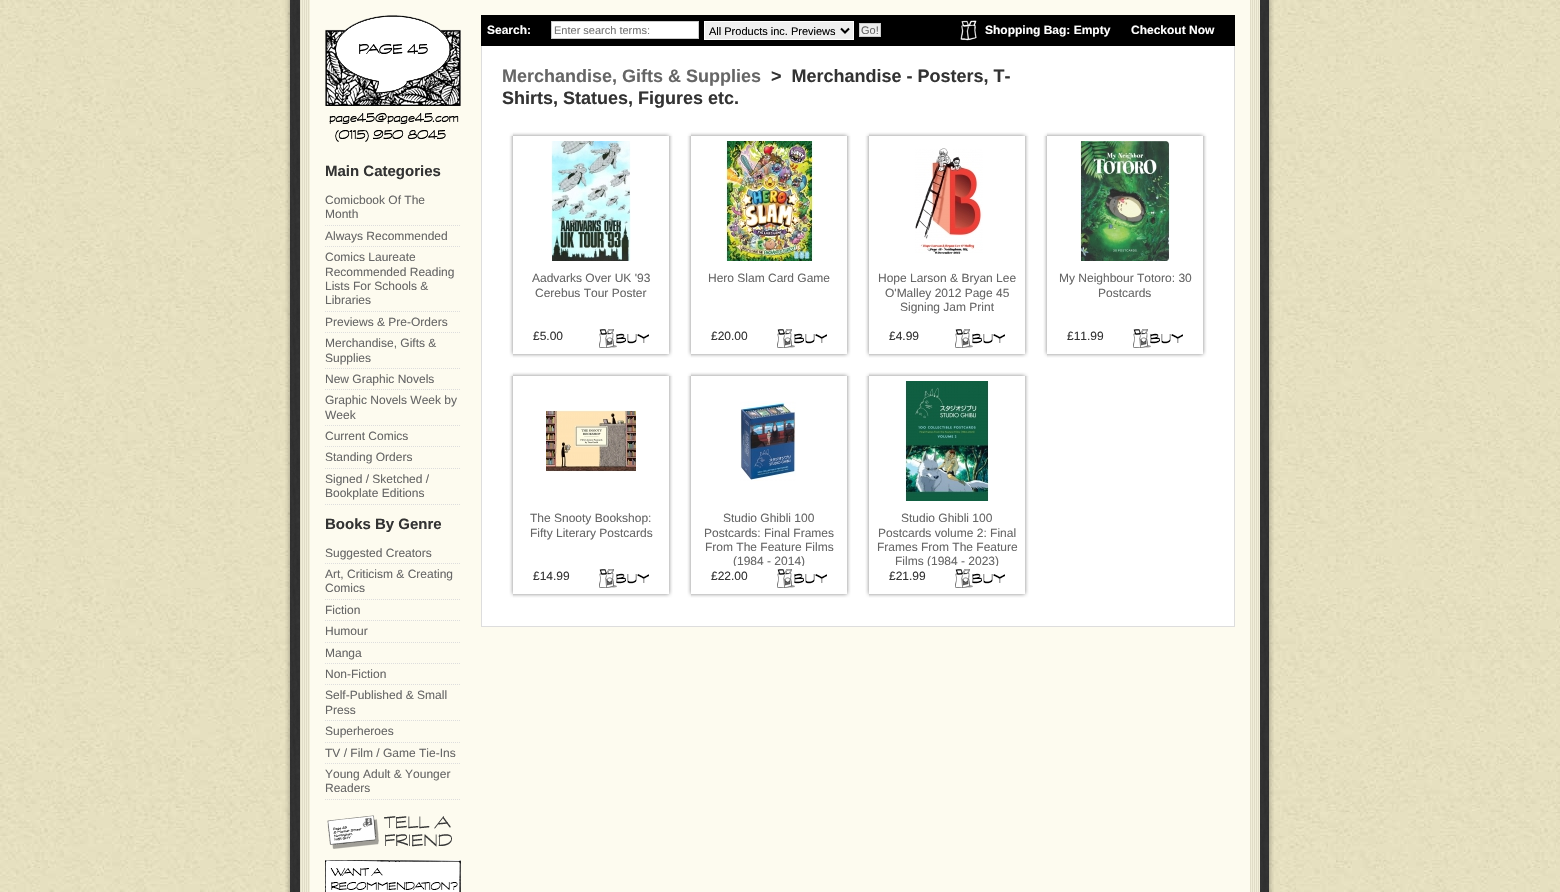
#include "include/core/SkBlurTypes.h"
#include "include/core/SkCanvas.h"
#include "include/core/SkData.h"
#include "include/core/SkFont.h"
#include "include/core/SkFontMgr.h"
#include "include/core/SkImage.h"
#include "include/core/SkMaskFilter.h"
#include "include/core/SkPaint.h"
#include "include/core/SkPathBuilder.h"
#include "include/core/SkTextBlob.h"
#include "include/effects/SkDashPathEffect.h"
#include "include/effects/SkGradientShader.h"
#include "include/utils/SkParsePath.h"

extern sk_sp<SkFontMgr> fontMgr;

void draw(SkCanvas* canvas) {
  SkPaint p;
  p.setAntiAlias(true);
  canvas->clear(SK_ColorWHITE);
  canvas->drawImageRect(SkImages::DeferredFromEncodedData(SkData::MakeFromFileName("images/1.png")), SkRect::MakeLTRB(0, 0, 1560, 892), SkSamplingOptions());
  canvas->drawImageRect(SkImages::DeferredFromEncodedData(SkData::MakeFromFileName("images/2.png")), SkRect::MakeLTRB(285, 0, 300, 892), SkSamplingOptions());
  canvas->drawImageRect(SkImages::DeferredFromEncodedData(SkData::MakeFromFileName("images/3.png")), SkRect::MakeLTRB(1260, 0, 1274, 892), SkSamplingOptions());
  canvas->drawImageRect(SkImages::DeferredFromEncodedData(SkData::MakeFromFileName("images/4.png")), SkRect::MakeLTRB(300, 0, 1260, 892), SkSamplingOptions());
  p.setColor(SkColorSetRGB(253, 251, 239));
  canvas->drawRect(SkRect::MakeLTRB(310, 0, 1250, 892), p);
  canvas->drawImageRect(SkImages::DeferredFromEncodedData(SkData::MakeFromFileName("images/5.png")), SkRect::MakeLTRB(325, 15, 461, 142), SkSamplingOptions());
  p.setStyle(SkPaint::kStroke_Style);
  p.setStrokeWidth(1);
  p.setColor(SkColorSetRGB(221, 221, 221));
  p.setPathEffect(SkDashPathEffect::Make({{1, 1}}, 0));
  canvas->drawPath(SkPathBuilder().moveTo(325, 225.5f).lineTo(461, 225.5f).detach(), p);
  p.setPathEffect(nullptr);
  p.setPathEffect(SkDashPathEffect::Make({{1, 1}}, 0));
  canvas->drawPath(SkPathBuilder().moveTo(325, 246.5f).lineTo(461, 246.5f).detach(), p);
  p.setPathEffect(nullptr);
  p.setPathEffect(SkDashPathEffect::Make({{1, 1}}, 0));
  canvas->drawPath(SkPathBuilder().moveTo(325, 311.5f).lineTo(461, 311.5f).detach(), p);
  p.setPathEffect(nullptr);
  p.setPathEffect(SkDashPathEffect::Make({{1, 1}}, 0));
  canvas->drawPath(SkPathBuilder().moveTo(325, 332.5f).lineTo(461, 332.5f).detach(), p);
  p.setPathEffect(nullptr);
  p.setPathEffect(SkDashPathEffect::Make({{1, 1}}, 0));
  canvas->drawPath(SkPathBuilder().moveTo(325, 368.5f).lineTo(461, 368.5f).detach(), p);
  p.setPathEffect(nullptr);
  p.setPathEffect(SkDashPathEffect::Make({{1, 1}}, 0));
  canvas->drawPath(SkPathBuilder().moveTo(325, 389.5f).lineTo(461, 389.5f).detach(), p);
  p.setPathEffect(nullptr);
  p.setPathEffect(SkDashPathEffect::Make({{1, 1}}, 0));
  canvas->drawPath(SkPathBuilder().moveTo(325, 425.5f).lineTo(461, 425.5f).detach(), p);
  p.setPathEffect(nullptr);
  p.setPathEffect(SkDashPathEffect::Make({{1, 1}}, 0));
  canvas->drawPath(SkPathBuilder().moveTo(325, 446.5f).lineTo(461, 446.5f).detach(), p);
  p.setPathEffect(nullptr);
  p.setPathEffect(SkDashPathEffect::Make({{1, 1}}, 0));
  canvas->drawPath(SkPathBuilder().moveTo(325, 468.5f).lineTo(461, 468.5f).detach(), p);
  p.setPathEffect(nullptr);
  p.setPathEffect(SkDashPathEffect::Make({{1, 1}}, 0));
  canvas->drawPath(SkPathBuilder().moveTo(325, 504.5f).lineTo(461, 504.5f).detach(), p);
  p.setPathEffect(nullptr);
  p.setPathEffect(SkDashPathEffect::Make({{1, 1}}, 0));
  canvas->drawPath(SkPathBuilder().moveTo(325, 563.5f).lineTo(461, 563.5f).detach(), p);
  p.setPathEffect(nullptr);
  p.setPathEffect(SkDashPathEffect::Make({{1, 1}}, 0));
  canvas->drawPath(SkPathBuilder().moveTo(325, 599.5f).lineTo(461, 599.5f).detach(), p);
  p.setPathEffect(nullptr);
  p.setPathEffect(SkDashPathEffect::Make({{1, 1}}, 0));
  canvas->drawPath(SkPathBuilder().moveTo(325, 620.5f).lineTo(461, 620.5f).detach(), p);
  p.setPathEffect(nullptr);
  p.setPathEffect(SkDashPathEffect::Make({{1, 1}}, 0));
  canvas->drawPath(SkPathBuilder().moveTo(325, 642.5f).lineTo(461, 642.5f).detach(), p);
  p.setPathEffect(nullptr);
  p.setPathEffect(SkDashPathEffect::Make({{1, 1}}, 0));
  canvas->drawPath(SkPathBuilder().moveTo(325, 663.5f).lineTo(461, 663.5f).detach(), p);
  p.setPathEffect(nullptr);
  p.setPathEffect(SkDashPathEffect::Make({{1, 1}}, 0));
  canvas->drawPath(SkPathBuilder().moveTo(325, 684.5f).lineTo(461, 684.5f).detach(), p);
  p.setPathEffect(nullptr);
  p.setPathEffect(SkDashPathEffect::Make({{1, 1}}, 0));
  canvas->drawPath(SkPathBuilder().moveTo(325, 720.5f).lineTo(461, 720.5f).detach(), p);
  p.setPathEffect(nullptr);
  p.setPathEffect(SkDashPathEffect::Make({{1, 1}}, 0));
  canvas->drawPath(SkPathBuilder().moveTo(325, 742.5f).lineTo(461, 742.5f).detach(), p);
  p.setPathEffect(nullptr);
  p.setPathEffect(SkDashPathEffect::Make({{1, 1}}, 0));
  canvas->drawPath(SkPathBuilder().moveTo(325, 763.5f).lineTo(461, 763.5f).detach(), p);
  p.setPathEffect(nullptr);
  p.setPathEffect(SkDashPathEffect::Make({{1, 1}}, 0));
  canvas->drawPath(SkPathBuilder().moveTo(325, 799.5f).lineTo(461, 799.5f).detach(), p);
  p.setPathEffect(nullptr);
  canvas->drawImageRect(SkImages::DeferredFromEncodedData(SkData::MakeFromFileName("images/6.png")), SkRect::MakeLTRB(327, 815, 452, 849), SkSamplingOptions());
  canvas->drawImageRect(SkImages::DeferredFromEncodedData(SkData::MakeFromFileName("images/7.png")), SkRect::MakeLTRB(325, 860, 461, 892), SkSamplingOptions());
  p.setStyle(SkPaint::kFill_Style);
  p.setColor(SK_ColorBLACK);
  canvas->drawRect(SkRect::MakeLTRB(481, 15, 1235, 46), p);
  p.setColor(SK_ColorWHITE);
  canvas->drawRect(SkRect::MakeLTRB(551.5f, 21.5f, 698.5f, 38.5f), p);
  p.setStyle(SkPaint::kStroke_Style);
  p.setColor(SkColorSetRGB(204, 204, 204));
  canvas->drawRect(SkRect::MakeLTRB(551.5f, 21.5f, 698.5f, 38.5f), p);
  p.setStyle(SkPaint::kFill_Style);
  p.setColor(SkColorSetRGB(239, 239, 239));
  canvas->drawRect(SkRect::MakeLTRB(704.5f, 21.5f, 853.5f, 39.5f), p);
  p.setStyle(SkPaint::kStroke_Style);
  p.setColor(SK_ColorWHITE);
  canvas->drawRect(SkRect::MakeLTRB(704.5f, 21.5f, 853.5f, 39.5f), p);
  p.setStrokeWidth(2);
  p.setColor(SK_ColorBLACK);
  canvas->drawPath(SkPathBuilder().moveTo(841, 28.5f).lineTo(845, 32.5f).lineTo(849, 28.5f).detach(), p);
  p.setStyle(SkPaint::kFill_Style);
  p.setColor(SkColorSetRGB(238, 238, 238));
  canvas->drawRect(SkRect::MakeLTRB(859.5f, 23.5f, 880.5f, 36.5f), p);
  p.setStyle(SkPaint::kStroke_Style);
  p.setStrokeWidth(1);
  p.setColor(SkColorSetRGB(204, 204, 204));
  canvas->drawRect(SkRect::MakeLTRB(859.5f, 23.5f, 880.5f, 36.5f), p);
  canvas->drawImageRect(SkImages::DeferredFromEncodedData(SkData::MakeFromFileName("images/8.png")), SkRect::MakeLTRB(960, 20, 977, 41), SkSamplingOptions());
  p.setStyle(SkPaint::kFill_Style);
  p.setColor(SK_ColorWHITE);
  canvas->drawRect(SkRect::MakeLTRB(482, 46, 1234, 626), p);
  p.setColor(SkColorSetRGB(221, 221, 221));
  canvas->drawRect(SkRect::MakeLTRB(1234, 46, 1235, 627), p);
  canvas->drawRect(SkRect::MakeLTRB(481, 626, 1235, 627), p);
  canvas->drawRect(SkRect::MakeLTRB(481, 46, 482, 627), p);
  canvas->drawImageRect(SkImages::DeferredFromEncodedData(SkData::MakeFromFileName("images/9.png")), SkRect::MakeLTRB(513, 136, 673, 358), SkSamplingOptions());
  canvas->drawImageRect(SkImages::DeferredFromEncodedData(SkData::MakeFromFileName("images/10.png")), SkRect::MakeLTRB(509, 136, 513, 358), SkSamplingOptions());
  canvas->drawImageRect(SkImages::DeferredFromEncodedData(SkData::MakeFromFileName("images/11.png")), SkRect::MakeLTRB(513, 132, 673, 136), SkSamplingOptions());
  canvas->drawImageRect(SkImages::DeferredFromEncodedData(SkData::MakeFromFileName("images/12.png")), SkRect::MakeLTRB(509, 132, 513, 136), SkSamplingOptions());
  canvas->drawImageRect(SkImages::DeferredFromEncodedData(SkData::MakeFromFileName("images/13.png")), SkRect::MakeLTRB(551, 141, 631, 261), SkSamplingOptions());
  canvas->drawImageRect(SkImages::DeferredFromEncodedData(SkData::MakeFromFileName("images/14.png")), SkRect::MakeLTRB(599, 329, 649, 348), SkSamplingOptions());
  canvas->drawImageRect(SkImages::DeferredFromEncodedData(SkData::MakeFromFileName("images/9.png")), SkRect::MakeLTRB(691, 136, 851, 358), SkSamplingOptions());
  canvas->drawImageRect(SkImages::DeferredFromEncodedData(SkData::MakeFromFileName("images/10.png")), SkRect::MakeLTRB(687, 136, 691, 358), SkSamplingOptions());
  canvas->drawImageRect(SkImages::DeferredFromEncodedData(SkData::MakeFromFileName("images/11.png")), SkRect::MakeLTRB(691, 132, 851, 136), SkSamplingOptions());
  canvas->drawImageRect(SkImages::DeferredFromEncodedData(SkData::MakeFromFileName("images/12.png")), SkRect::MakeLTRB(687, 132, 691, 136), SkSamplingOptions());
  canvas->drawImageRect(SkImages::DeferredFromEncodedData(SkData::MakeFromFileName("images/15.png")), SkRect::MakeLTRB(725, 141, 814, 261), SkSamplingOptions());
  canvas->drawImageRect(SkImages::DeferredFromEncodedData(SkData::MakeFromFileName("images/14.png")), SkRect::MakeLTRB(777, 329, 827, 348), SkSamplingOptions());
  canvas->drawImageRect(SkImages::DeferredFromEncodedData(SkData::MakeFromFileName("images/9.png")), SkRect::MakeLTRB(869, 136, 1029, 358), SkSamplingOptions());
  canvas->drawImageRect(SkImages::DeferredFromEncodedData(SkData::MakeFromFileName("images/10.png")), SkRect::MakeLTRB(865, 136, 869, 358), SkSamplingOptions());
  canvas->drawImageRect(SkImages::DeferredFromEncodedData(SkData::MakeFromFileName("images/11.png")), SkRect::MakeLTRB(869, 132, 1029, 136), SkSamplingOptions());
  canvas->drawImageRect(SkImages::DeferredFromEncodedData(SkData::MakeFromFileName("images/12.png")), SkRect::MakeLTRB(865, 132, 869, 136), SkSamplingOptions());
  canvas->drawImageRect(SkImages::DeferredFromEncodedData(SkData::MakeFromFileName("images/16.png")), SkRect::MakeLTRB(915, 148, 983, 254), SkSamplingOptions());
  canvas->drawImageRect(SkImages::DeferredFromEncodedData(SkData::MakeFromFileName("images/14.png")), SkRect::MakeLTRB(955, 329, 1005, 348), SkSamplingOptions());
  canvas->drawImageRect(SkImages::DeferredFromEncodedData(SkData::MakeFromFileName("images/9.png")), SkRect::MakeLTRB(1047, 136, 1207, 358), SkSamplingOptions());
  canvas->drawImageRect(SkImages::DeferredFromEncodedData(SkData::MakeFromFileName("images/10.png")), SkRect::MakeLTRB(1043, 136, 1047, 358), SkSamplingOptions());
  canvas->drawImageRect(SkImages::DeferredFromEncodedData(SkData::MakeFromFileName("images/11.png")), SkRect::MakeLTRB(1047, 132, 1207, 136), SkSamplingOptions());
  canvas->drawImageRect(SkImages::DeferredFromEncodedData(SkData::MakeFromFileName("images/12.png")), SkRect::MakeLTRB(1043, 132, 1047, 136), SkSamplingOptions());
  canvas->drawImageRect(SkImages::DeferredFromEncodedData(SkData::MakeFromFileName("images/17.png")), SkRect::MakeLTRB(1080, 141, 1170, 261), SkSamplingOptions());
  canvas->drawImageRect(SkImages::DeferredFromEncodedData(SkData::MakeFromFileName("images/14.png")), SkRect::MakeLTRB(1133, 329, 1183, 348), SkSamplingOptions());
  canvas->drawImageRect(SkImages::DeferredFromEncodedData(SkData::MakeFromFileName("images/9.png")), SkRect::MakeLTRB(513, 376, 673, 598), SkSamplingOptions());
  canvas->drawImageRect(SkImages::DeferredFromEncodedData(SkData::MakeFromFileName("images/10.png")), SkRect::MakeLTRB(509, 376, 513, 598), SkSamplingOptions());
  canvas->drawImageRect(SkImages::DeferredFromEncodedData(SkData::MakeFromFileName("images/11.png")), SkRect::MakeLTRB(513, 372, 673, 376), SkSamplingOptions());
  canvas->drawImageRect(SkImages::DeferredFromEncodedData(SkData::MakeFromFileName("images/12.png")), SkRect::MakeLTRB(509, 372, 513, 376), SkSamplingOptions());
  canvas->drawImageRect(SkImages::DeferredFromEncodedData(SkData::MakeFromFileName("images/18.png")), SkRect::MakeLTRB(546, 410, 636, 472), SkSamplingOptions());
  canvas->drawImageRect(SkImages::DeferredFromEncodedData(SkData::MakeFromFileName("images/14.png")), SkRect::MakeLTRB(599, 569, 649, 588), SkSamplingOptions());
  canvas->drawImageRect(SkImages::DeferredFromEncodedData(SkData::MakeFromFileName("images/9.png")), SkRect::MakeLTRB(691, 376, 851, 598), SkSamplingOptions());
  canvas->drawImageRect(SkImages::DeferredFromEncodedData(SkData::MakeFromFileName("images/10.png")), SkRect::MakeLTRB(687, 376, 691, 598), SkSamplingOptions());
  canvas->drawImageRect(SkImages::DeferredFromEncodedData(SkData::MakeFromFileName("images/11.png")), SkRect::MakeLTRB(691, 372, 851, 376), SkSamplingOptions());
  canvas->drawImageRect(SkImages::DeferredFromEncodedData(SkData::MakeFromFileName("images/12.png")), SkRect::MakeLTRB(687, 372, 691, 376), SkSamplingOptions());
  canvas->drawImageRect(SkImages::DeferredFromEncodedData(SkData::MakeFromFileName("images/19.png")), SkRect::MakeLTRB(740, 401, 796, 481), SkSamplingOptions());
  canvas->drawImageRect(SkImages::DeferredFromEncodedData(SkData::MakeFromFileName("images/14.png")), SkRect::MakeLTRB(777, 569, 827, 588), SkSamplingOptions());
  canvas->drawImageRect(SkImages::DeferredFromEncodedData(SkData::MakeFromFileName("images/9.png")), SkRect::MakeLTRB(869, 376, 1029, 598), SkSamplingOptions());
  canvas->drawImageRect(SkImages::DeferredFromEncodedData(SkData::MakeFromFileName("images/10.png")), SkRect::MakeLTRB(865, 376, 869, 598), SkSamplingOptions());
  canvas->drawImageRect(SkImages::DeferredFromEncodedData(SkData::MakeFromFileName("images/11.png")), SkRect::MakeLTRB(869, 372, 1029, 376), SkSamplingOptions());
  canvas->drawImageRect(SkImages::DeferredFromEncodedData(SkData::MakeFromFileName("images/12.png")), SkRect::MakeLTRB(865, 372, 869, 376), SkSamplingOptions());
  canvas->drawImageRect(SkImages::DeferredFromEncodedData(SkData::MakeFromFileName("images/20.png")), SkRect::MakeLTRB(905, 381, 989, 501), SkSamplingOptions());
  canvas->drawImageRect(SkImages::DeferredFromEncodedData(SkData::MakeFromFileName("images/14.png")), SkRect::MakeLTRB(955, 569, 1005, 588), SkSamplingOptions());
  SkFont font1(fontMgr->matchFamilyStyle("Liberation Sans", SkFontStyle::Bold()), 15);
  font1.setSubpixel(true);
  p.setColor(SkColorSetRGB(51, 51, 51));
  canvas->drawString("Main Categories", 325, 176, font1, p);
  SkFont font2(fontMgr->matchFamilyStyle("Liberation Sans", SkFontStyle::Normal()), 12);
  font2.setSubpixel(true);
  p.setColor(SkColorSetRGB(102, 102, 102));
  canvas->drawString("Comicbook Of The", 325, 204, font2, p);
  canvas->drawString("Month", 325, 218, font2, p);
  canvas->drawString("Always Recommended", 325, 240, font2, p);
  canvas->drawString("Comics Laureate", 325, 261, font2, p);
  canvas->drawString("Recommended Reading", 325, 276, font2, p);
  canvas->drawString("Lists For Schools &", 325, 290, font2, p);
  canvas->drawString("Libraries", 325, 304, font2, p);
  canvas->drawString("Previews & Pre-Orders", 325, 326, font2, p);
  canvas->drawString("Merchandise, Gifts &", 325, 347, font2, p);
  canvas->drawString("Supplies", 325, 362, font2, p);
  canvas->drawString("New Graphic Novels", 325, 383, font2, p);
  canvas->drawString("Graphic Novels Week by", 325, 404, font2, p);
  canvas->drawString("Week", 325, 419, font2, p);
  canvas->drawString("Current Comics", 325, 440, font2, p);
  canvas->drawString("Standing Orders", 325, 461, font2, p);
  canvas->drawString("Signed / Sketched /", 325, 483, font2, p);
  canvas->drawString("Bookplate Editions", 325, 497, font2, p);
  p.setColor(SkColorSetRGB(51, 51, 51));
  canvas->drawString("Books By Genre", 325, 529, font1, p);
  p.setColor(SkColorSetRGB(102, 102, 102));
  canvas->drawString("Suggested Creators", 325, 557, font2, p);
  canvas->drawString("Art, Criticism & Creating", 325, 578, font2, p);
  canvas->drawString("Comics", 325, 592, font2, p);
  canvas->drawString("Fiction", 325, 614, font2, p);
  canvas->drawString("Humour", 325, 635, font2, p);
  canvas->drawString("Manga", 325, 657, font2, p);
  canvas->drawString("Non-Fiction", 325, 678, font2, p);
  canvas->drawString("Self-Published & Small", 325, 699, font2, p);
  canvas->drawString("Press", 325, 714, font2, p);
  canvas->drawString("Superheroes", 325, 735, font2, p);
  canvas->drawString("TV / Film / Game Tie-Ins", 325, 757, font2, p);
  canvas->drawString("Young Adult & Younger", 325, 778, font2, p);
  canvas->drawString("Readers", 325, 792, font2, p);
  SkFont font3(fontMgr->matchFamilyStyle("Liberation Sans", SkFontStyle::Bold()), 12);
  font3.setSubpixel(true);
  p.setColor(SK_ColorWHITE);
  canvas->drawString("Search:", 487, 34, font3, p);
  SkFont font4(fontMgr->matchFamilyStyle("Liberation Sans", SkFontStyle::Normal()), 11);
  font4.setSubpixel(true);
  p.setColor(SkColorSetRGB(117, 117, 117));
  canvas->drawString("Enter search terms:", 554, 34, font4, p);
  p.setColor(SK_ColorBLACK);
  canvas->drawString("All Products inc. Previews", 709, 35, font4, p);
  p.setColor(SkColorSetRGB(102, 102, 102));
  canvas->drawString("Go!", 861, 34, font4, p);
  p.setColor(SK_ColorWHITE);
  canvas->drawString("Shopping Bag: Empty", 985, 34, font3, p);
  canvas->drawString("Checkout Now", 1131, 34, font3, p);
  SkFont font5(fontMgr->matchFamilyStyle("Liberation Sans", SkFontStyle::Bold()), 18);
  font5.setSubpixel(true);
  p.setColor(SkColorSetRGB(102, 102, 102));
  canvas->drawString("Merchandise, Gifts & Supplies", 502, 82, font5, p);
  p.setColor(SkColorSetRGB(51, 51, 51));
  canvas->drawString(">  Merchandise - Posters, T-", 771, 82, font5, p);
  canvas->drawString("Shirts, Statues, Figures etc.", 502, 104, font5, p);
  p.setColor(SkColorSetRGB(102, 102, 102));
  canvas->drawString("Aadvarks Over UK '93", 532, 282, font2, p);
  canvas->drawString("Cerebus Tour Poster", 535, 297, font2, p);
  p.setColor(SkColorSetRGB(51, 51, 51));
  canvas->drawString("£5.00", 533, 340, font2, p);
  p.setColor(SkColorSetRGB(102, 102, 102));
  canvas->drawString("Hero Slam Card Game", 708, 282, font2, p);
  p.setColor(SkColorSetRGB(51, 51, 51));
  canvas->drawString("£20.00", 711, 340, font2, p);
  p.setColor(SkColorSetRGB(102, 102, 102));
  canvas->drawString("Hope Larson & Bryan Lee", 878, 282, font2, p);
  canvas->drawString("O'Malley 2012 Page 45", 885, 297, font2, p);
  canvas->drawString("Signing Jam Print", 900, 311, font2, p);
  p.setColor(SkColorSetRGB(51, 51, 51));
  canvas->drawString("£4.99", 889, 340, font2, p);
  p.setColor(SkColorSetRGB(102, 102, 102));
  canvas->drawString("My Neighbour Totoro: 30", 1059, 282, font2, p);
  canvas->drawString("Postcards", 1098, 297, font2, p);
  p.setColor(SkColorSetRGB(51, 51, 51));
  canvas->drawString("£11.99", 1067, 340, font2, p);
  p.setColor(SkColorSetRGB(102, 102, 102));
  canvas->drawString("The Snooty Bookshop:", 530, 522, font2, p);
  canvas->drawString("Fifty Literary Postcards", 530, 537, font2, p);
  p.setColor(SkColorSetRGB(51, 51, 51));
  canvas->drawString("£14.99", 533, 580, font2, p);
  p.setColor(SkColorSetRGB(102, 102, 102));
  canvas->drawString("Studio Ghibli 100", 723, 522, font2, p);
  canvas->drawString("Postcards: Final Frames", 704, 537, font2, p);
  canvas->drawString("From The Feature Films", 705, 551, font2, p);
  canvas->save();
  canvas->clipRect(SkRect::MakeLTRB(696, 511, 842, 566));
  canvas->drawString("(1984 - 2014)", 733, 565, font2, p);
  canvas->restore();
  p.setColor(SkColorSetRGB(51, 51, 51));
  canvas->drawString("£22.00", 711, 580, font2, p);
  p.setColor(SkColorSetRGB(102, 102, 102));
  canvas->drawString("Studio Ghibli 100", 901, 522, font2, p);
  canvas->drawString("Postcards volume 2: Final", 878, 537, font2, p);
  canvas->drawString("Frames From The Feature", 877, 551, font2, p);
  canvas->save();
  canvas->clipRect(SkRect::MakeLTRB(874, 511, 1020, 566));
  canvas->drawString("Films (1984 - 2023)", 895, 565, font2, p);
  canvas->restore();
  p.setColor(SkColorSetRGB(51, 51, 51));
  canvas->drawString("£21.99", 889, 580, font2, p);
}
